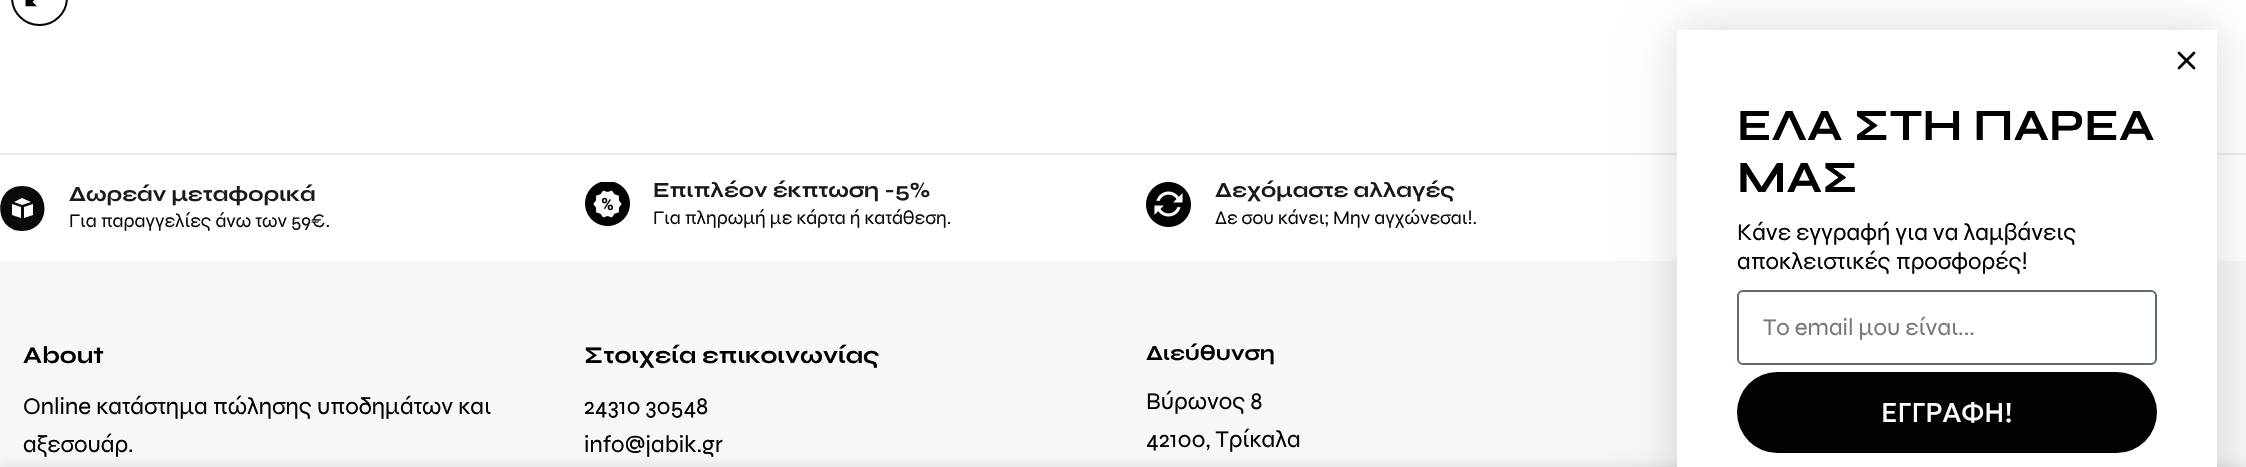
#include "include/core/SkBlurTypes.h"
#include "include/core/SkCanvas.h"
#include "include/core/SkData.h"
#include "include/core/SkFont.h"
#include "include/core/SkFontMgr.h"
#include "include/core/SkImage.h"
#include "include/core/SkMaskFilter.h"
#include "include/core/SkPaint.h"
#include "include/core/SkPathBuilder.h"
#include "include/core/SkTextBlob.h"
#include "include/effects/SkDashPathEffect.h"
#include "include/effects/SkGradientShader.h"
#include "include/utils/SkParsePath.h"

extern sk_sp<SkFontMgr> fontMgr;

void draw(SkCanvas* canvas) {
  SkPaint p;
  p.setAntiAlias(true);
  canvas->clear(SK_ColorWHITE);
  p.setStyle(SkPaint::kStroke_Style);
  p.setStrokeWidth(2);
  p.setColor(SK_ColorBLACK);
  canvas->drawCircle(39.5f, -2.5f, 27.5f, p);
  canvas->drawImageRect(SkImages::DeferredFromEncodedData(SkData::MakeFromFileName("images/1.png")), SkRect::MakeLTRB(25, 0, 37, 7), SkSamplingOptions());
  p.setStyle(SkPaint::kFill_Style);
  p.setColor(SkColorSetRGB(236, 236, 236));
  canvas->drawRect(SkRect::MakeLTRB(0, 153, 2246, 155), p);
  p.setColor(SkColorSetRGB(10, 10, 10));
  canvas->drawPath(SkPathBuilder().moveTo(22, 186).cubicTo(-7, 186, -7, 231, 22, 231).cubicTo(52, 231, 52, 186, 22, 186).close().moveTo(21, 218).lineTo(12, 215).lineTo(12, 204).lineTo(21, 207).close().moveTo(14, 202).lineTo(22, 198).lineTo(31, 202).lineTo(22, 205).close().moveTo(33, 215).lineTo(24, 218).lineTo(24, 207).lineTo(33, 204).close().detach(), p);
  canvas->drawImageRect(SkImages::DeferredFromEncodedData(SkData::MakeFromFileName("images/2.png")), SkRect::MakeLTRB(585, 182, 630, 226), SkSamplingOptions());
  canvas->drawImageRect(SkImages::DeferredFromEncodedData(SkData::MakeFromFileName("images/3.png")), SkRect::MakeLTRB(1146, 182, 1191, 227), SkSamplingOptions());
  p.setColor(SkColorSetRGB(247, 247, 247));
  canvas->drawRect(SkRect::MakeLTRB(0, 261, 2246, 467), p);
  p.setColor(SkColorSetARGB(38, 0, 0, 0));
  p.setMaskFilter(SkMaskFilter::MakeBlur(kNormal_SkBlurStyle, 22.5f));
  canvas->drawRect(SkRect::MakeLTRB(1677, 30, 2217, 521), p);
  p.setMaskFilter(nullptr);
  p.setColor(SkColorSetARGB(36, 0, 0, 0));
  p.setMaskFilter(SkMaskFilter::MakeBlur(kNormal_SkBlurStyle, 7));
  canvas->drawRect(SkRect::MakeLTRB(0, 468, 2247, 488), p);
  p.setMaskFilter(nullptr);
  p.setColor(SK_ColorWHITE);
  canvas->drawRect(SkRect::MakeLTRB(1677, 30, 2217, 467), p);
  p.setStyle(SkPaint::kStroke_Style);
  p.setStrokeWidth(2.8f);
  p.setStrokeCap(SkPaint::kRound_Cap);
  p.setStrokeJoin(SkPaint::kRound_Join);
  p.setColor(SK_ColorBLACK);
  canvas->drawPath(SkPathBuilder().moveTo(2179, 53).lineTo(2194, 68).moveTo(2179, 68).lineTo(2194, 53).close().detach(), p);
  p.setStrokeWidth(2);
  p.setStrokeCap(SkPaint::kButt_Cap);
  p.setStrokeJoin(SkPaint::kMiter_Join);
  p.setColor(SkColorSetRGB(96, 106, 114));
  canvas->drawRoundRect(SkRect::MakeLTRB(1738, 291, 2156, 364), 5, 5, p);
  p.setStyle(SkPaint::kFill_Style);
  p.setColor(SkColorSetRGB(2, 2, 2));
  canvas->drawRoundRect(SkRect::MakeLTRB(1737, 372, 2157, 453), 40.5f, 40.5f, p);
  SkFont font1(fontMgr->matchFamilyStyle("Syne", SkFontStyle::Bold()), 21.6f);
  font1.setSubpixel(true);
  p.setColor(SkColorSetRGB(26, 26, 24));
  canvas->drawString("Δωρεάν μεταφορικά", 69, 201, font1, p);
  SkFont font2(fontMgr->matchFamilyStyle("Syne", SkFontStyle::Normal()), 19.25f);
  font2.setSubpixel(true);
  p.setColor(SkColorSetRGB(10, 10, 10));
  canvas->drawString("Για παραγγελίες άνω των 59€.", 69, 227, font2, p);
  p.setColor(SkColorSetRGB(26, 26, 24));
  canvas->drawString("Επιπλέον έκπτωση -5%", 653, 197, font1, p);
  p.setColor(SkColorSetRGB(10, 10, 10));
  canvas->drawString("Για πληρωμή με κάρτα ή κατάθεση.", 653, 224, font2, p);
  p.setColor(SkColorSetRGB(26, 26, 24));
  canvas->drawString("Δεχόμαστε αλλαγές", 1215, 197, font1, p);
  p.setColor(SkColorSetRGB(10, 10, 10));
  canvas->drawString("Δε σου κάνει; Μην αγχώνεσαι!.", 1215, 224, font2, p);
  SkFont font3(fontMgr->matchFamilyStyle("Syne", SkFontStyle::Bold()), 24);
  font3.setSubpixel(true);
  p.setColor(SK_ColorBLACK);
  canvas->drawString("About", 23, 363, font3, p);
  SkFont font4(fontMgr->matchFamilyStyle("Syne", SkFontStyle::Normal()), 24);
  font4.setSubpixel(true);
  canvas->drawString("Online κατάστημα πώλησης υποδημάτων και", 23, 414, font4, p);
  canvas->drawString("αξεσουάρ.", 23, 452, font4, p);
  canvas->drawString("Στοιχεία επικοινωνίας", 584, 363, font3, p);
  canvas->drawString("24310 30548", 584, 414, font4, p);
  canvas->drawString("info@jabik.gr", 584, 452, font4, p);
  canvas->drawString("Διεύθυνση", 1146, 360, font1, p);
  canvas->drawString("Βύρωνος 8", 1146, 409, font4, p);
  canvas->drawString("42100, Τρίκαλα", 1146, 447, font4, p);
  SkFont font5(fontMgr->matchFamilyStyle("Syne", SkFontStyle::Bold()), 45);
  font5.setSubpixel(true);
  canvas->drawString("ΕΛΑ ΣΤΗ ΠΑΡΕΑ", 1737, 140, font5, p);
  canvas->drawString("ΜΑΣ", 1737, 192, font5, p);
  SkFont font6(fontMgr->matchFamilyStyle("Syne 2", SkFontStyle::Normal()), 24);
  font6.setSubpixel(true);
  canvas->drawString("Κάνε εγγραφή για να λαμβάνεις", 1737, 240, font6, p);
  canvas->drawString("αποκλειστικές προσφορές!", 1737, 269, font6, p);
  p.setColor(SkColorSetRGB(118, 118, 118));
  canvas->drawString("Το email μου είναι...", 1763, 335, font6, p);
  SkFont font7(fontMgr->matchFamilyStyle("Geologica", SkFontStyle::Normal()), 27);
  font7.setSubpixel(true);
  p.setColor(SkColorSetRGB(255, 251, 251));
  canvas->drawString("ΕΓΓΡΑΦΗ!", 1881, 422, font7, p);
}
